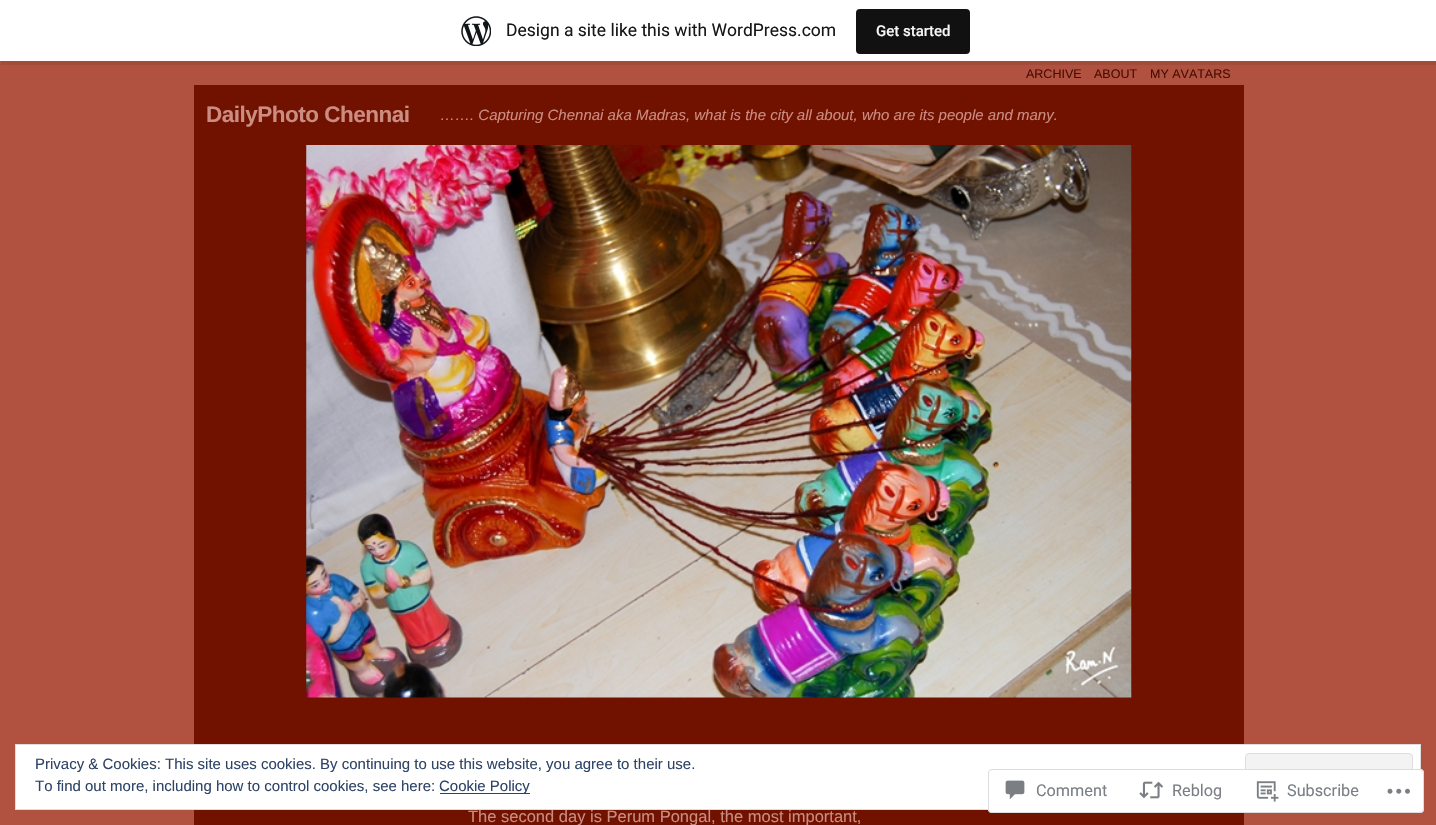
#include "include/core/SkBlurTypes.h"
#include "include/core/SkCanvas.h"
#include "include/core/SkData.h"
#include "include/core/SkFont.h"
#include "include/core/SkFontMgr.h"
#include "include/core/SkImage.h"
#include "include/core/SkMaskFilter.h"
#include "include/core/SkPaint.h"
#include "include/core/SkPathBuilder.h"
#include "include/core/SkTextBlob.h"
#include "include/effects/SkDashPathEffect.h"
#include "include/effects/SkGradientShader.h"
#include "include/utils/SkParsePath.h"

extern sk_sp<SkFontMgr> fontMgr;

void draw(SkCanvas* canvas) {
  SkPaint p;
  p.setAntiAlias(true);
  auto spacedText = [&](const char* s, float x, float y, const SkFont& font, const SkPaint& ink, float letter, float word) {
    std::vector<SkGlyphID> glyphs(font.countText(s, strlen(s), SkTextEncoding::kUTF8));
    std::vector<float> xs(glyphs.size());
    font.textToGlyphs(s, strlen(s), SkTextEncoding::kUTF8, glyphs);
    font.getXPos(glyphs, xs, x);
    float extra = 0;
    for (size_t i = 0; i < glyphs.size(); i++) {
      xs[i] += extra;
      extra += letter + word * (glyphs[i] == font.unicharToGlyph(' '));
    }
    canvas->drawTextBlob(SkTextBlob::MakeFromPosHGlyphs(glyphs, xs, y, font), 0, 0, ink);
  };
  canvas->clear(SkColorSetRGB(177, 82, 65));
  p.setColor(SkColorSetARGB(20, 0, 0, 0));
  canvas->drawPath(SkPathBuilder().moveTo(1, 61).lineTo(1, 65).lineTo(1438, 65).lineTo(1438, 4).lineTo(1436, 4).lineTo(1436, 61).close().detach(), p);
  p.setColor(SK_ColorWHITE);
  canvas->drawRect(SkRect::MakeLTRB(0, 0, 1436, 61), p);
  canvas->drawImageRect(SkImages::DeferredFromEncodedData(SkData::MakeFromFileName("images/1.png")), SkRect::MakeLTRB(461, 16, 491, 46), SkSamplingOptions());
  p.setColor(SkColorSetRGB(17, 17, 17));
  canvas->drawRoundRect(SkRect::MakeLTRB(856, 9, 970, 54), 4, 4, p);
  p.setColor(SkColorSetRGB(113, 18, 1));
  canvas->drawRect(SkRect::MakeLTRB(194, 85, 1244, 825), p);
  canvas->drawImageRect(SkImages::DeferredFromEncodedData(SkData::MakeFromFileName("images/2.png")), SkRect::MakeLTRB(306, 145, 1132, 698), SkSamplingOptions());
  p.setColor(SK_ColorWHITE);
  canvas->drawRect(SkRect::MakeLTRB(15.5f, 744.5f, 1420.5f, 809.5f), p);
  p.setStyle(SkPaint::kStroke_Style);
  p.setStrokeWidth(1);
  p.setColor(SkColorSetRGB(222, 222, 222));
  canvas->drawRect(SkRect::MakeLTRB(15.5f, 744.5f, 1420.5f, 809.5f), p);
  p.setStyle(SkPaint::kFill_Style);
  p.setColor(SkColorSetRGB(243, 243, 243));
  canvas->drawRoundRect(SkRect::MakeLTRB(1245.5f, 753.5f, 1412.5f, 800.5f), 3.5f, 3.5f, p);
  p.setStyle(SkPaint::kStroke_Style);
  p.setColor(SkColorSetRGB(222, 222, 222));
  canvas->drawRoundRect(SkRect::MakeLTRB(1245.5f, 753.5f, 1412.5f, 800.5f), 3.5f, 3.5f, p);
  p.setStyle(SkPaint::kFill_Style);
  p.setColor(SkColorSetRGB(46, 68, 103));
  canvas->drawRect(SkRect::MakeLTRB(440, 793, 530, 794), p);
  p.setColor(SkColorSetARGB(250, 255, 255, 255));
  canvas->drawRoundRect(SkRect::MakeLTRB(988, 769, 1424, 813), 4, 4, p);
  p.setStyle(SkPaint::kStroke_Style);
  p.setColor(SkColorSetARGB(250, 220, 220, 222));
  canvas->drawRoundRect(SkRect::MakeLTRB(988.5f, 769.5f, 1423.5f, 812.5f), 3.5f, 3.5f, p);
  canvas->drawImageRect(SkImages::DeferredFromEncodedData(SkData::MakeFromFileName("images/3.png")), SkRect::MakeLTRB(1005, 780, 1025, 800), SkSamplingOptions());
  canvas->drawImageRect(SkImages::DeferredFromEncodedData(SkData::MakeFromFileName("images/4.png")), SkRect::MakeLTRB(1139, 781, 1164, 799), SkSamplingOptions());
  canvas->drawImageRect(SkImages::DeferredFromEncodedData(SkData::MakeFromFileName("images/5.png")), SkRect::MakeLTRB(1256, 781, 1279, 802), SkSamplingOptions());
  canvas->drawImageRect(SkImages::DeferredFromEncodedData(SkData::MakeFromFileName("images/6.png")), SkRect::MakeLTRB(1387, 788, 1410, 794), SkSamplingOptions());
  SkFont font1(fontMgr->matchFamilyStyle("Roboto", SkFontStyle::Normal()), 17.5f);
  font1.setSubpixel(true);
  p.setStyle(SkPaint::kFill_Style);
  p.setColor(SkColorSetRGB(23, 23, 23));
  canvas->drawString("Design a site like this with WordPress.com", 506, 36, font1, p);
  SkFont font2(fontMgr->matchFamilyStyle("Roboto", SkFontStyle(500, SkFontStyle::kNormal_Width, SkFontStyle::kUpright_Slant)), 15);
  font2.setSubpixel(true);
  p.setColor(SkColorSetRGB(246, 247, 247));
  canvas->drawString("Get started", 876, 36, font2, p);
  SkFont font3(fontMgr->matchFamilyStyle("Liberation Sans", SkFontStyle::Normal()), 12.5f);
  font3.setSubpixel(true);
  p.setColor(SkColorSetRGB(75, 12, 1));
  canvas->drawString("ARCHIVE", 1026, 78, font3, p);
  canvas->drawString("ABOUT", 1094, 78, font3, p);
  canvas->drawString("MY AVATARS", 1150, 78, font3, p);
  SkFont font4(fontMgr->matchFamilyStyle("Liberation Sans", SkFontStyle::Bold()), 22.5f);
  font4.setSubpixel(true);
  p.setColor(SkColorSetRGB(203, 140, 129));
  spacedText("DailyPhoto Chennai", 206, 122, font4, p, -0.5f, 0);
  SkFont font5(fontMgr->matchFamilyStyle("Liberation Sans", SkFontStyle::Italic()), 15);
  font5.setSubpixel(true);
  canvas->drawString("……. Capturing Chennai aka Madras, what is the city all about, who are its people and many.", 440, 120, font5, p);
  SkFont font6(fontMgr->matchFamilyStyle("Liberation Sans", SkFontStyle::Normal()), 16.5f);
  font6.setSubpixel(true);
  canvas->drawString("The second day is Perum Pongal, the most important,", 468, 822, font6, p);
  SkFont font7(fontMgr->matchFamilyStyle("Liberation Sans", SkFontStyle::Normal()), 15);
  font7.setSubpixel(true);
  p.setColor(SkColorSetRGB(46, 68, 103));
  canvas->drawString("Privacy & Cookies: This site uses cookies. By continuing to use this website, you agree to their use.", 35, 769, font7, p);
  canvas->drawString("To find out more, including how to control cookies, see here:", 35, 791, font7, p);
  canvas->drawString("Cookie Policy", 439, 791, font7, p);
  SkFont font8(fontMgr->matchFamilyStyle("Roboto", SkFontStyle::Normal()), 16.25f);
  font8.setSubpixel(true);
  p.setColor(SkColorSetRGB(123, 127, 133));
  canvas->drawString("Comment", 1036, 796, font8, p);
  canvas->drawString("Reblog", 1172, 796, font8, p);
  canvas->drawString("Subscribe", 1287, 796, font8, p);
}
